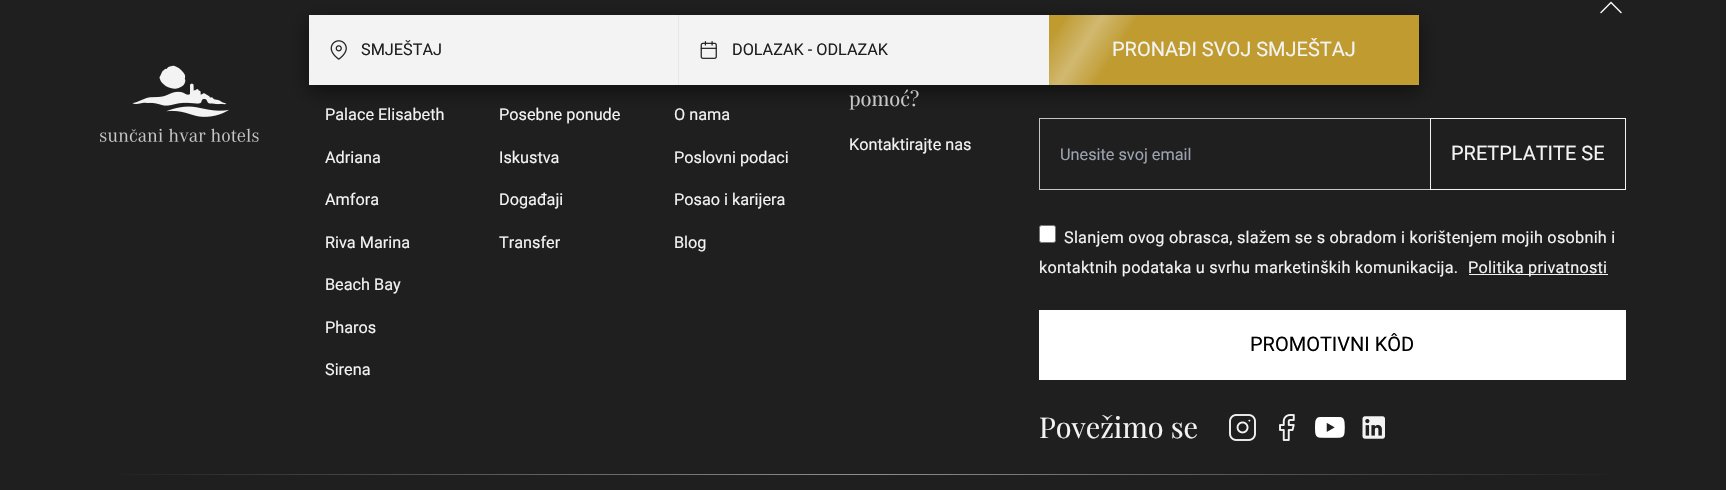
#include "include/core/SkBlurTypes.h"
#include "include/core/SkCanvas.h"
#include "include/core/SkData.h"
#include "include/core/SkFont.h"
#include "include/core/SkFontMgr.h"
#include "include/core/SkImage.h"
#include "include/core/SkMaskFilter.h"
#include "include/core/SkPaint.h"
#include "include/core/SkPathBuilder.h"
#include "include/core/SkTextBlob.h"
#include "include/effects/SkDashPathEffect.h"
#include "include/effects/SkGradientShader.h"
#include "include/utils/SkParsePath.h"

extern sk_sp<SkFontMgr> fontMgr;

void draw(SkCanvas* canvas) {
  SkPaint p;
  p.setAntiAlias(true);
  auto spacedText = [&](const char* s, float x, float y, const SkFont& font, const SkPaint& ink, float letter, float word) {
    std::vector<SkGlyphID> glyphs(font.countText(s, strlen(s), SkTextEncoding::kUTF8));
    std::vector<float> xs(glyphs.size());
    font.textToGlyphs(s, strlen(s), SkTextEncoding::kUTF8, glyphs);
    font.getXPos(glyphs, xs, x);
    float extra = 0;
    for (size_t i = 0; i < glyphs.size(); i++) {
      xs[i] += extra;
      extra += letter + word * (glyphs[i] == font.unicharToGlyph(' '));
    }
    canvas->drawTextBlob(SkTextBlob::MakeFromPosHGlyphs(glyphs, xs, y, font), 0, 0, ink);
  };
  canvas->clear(SkColorSetRGB(31, 31, 31));
  p.setColor(SkColorSetRGB(198, 198, 198));
  canvas->drawRect(SkRect::MakeLTRB(1039, 118, 1430, 119), p);
  canvas->drawRect(SkRect::MakeLTRB(1039, 189, 1430, 190), p);
  canvas->drawRect(SkRect::MakeLTRB(1039, 118, 1040, 190), p);
  p.setStyle(SkPaint::kStroke_Style);
  p.setStrokeWidth(1);
  p.setColor(SkColorSetRGB(243, 243, 243));
  canvas->drawRect(SkRect::MakeLTRB(1430.5f, 118.5f, 1625.5f, 189.5f), p);
  p.setStyle(SkPaint::kFill_Style);
  p.setColor(SkColorSetARGB(128, 0, 0, 0));
  p.setMaskFilter(SkMaskFilter::MakeBlur(kNormal_SkBlurStyle, 9.5f));
  canvas->drawRect(SkRect::MakeLTRB(309, 21, 1419, 91), p);
  p.setMaskFilter(nullptr);
  p.setColor(SkColorSetRGB(243, 243, 243));
  canvas->drawRect(SkRect::MakeLTRB(309, 15, 1049, 85), p);
  canvas->drawImageRect(SkImages::DeferredFromEncodedData(SkData::MakeFromFileName("images/1.png")), SkRect::MakeLTRB(330, 40, 347, 60), SkSamplingOptions());
  p.setColor(SkColorSetRGB(229, 231, 235));
  canvas->drawRect(SkRect::MakeLTRB(678, 15, 679, 85), p);
  canvas->drawImageRect(SkImages::DeferredFromEncodedData(SkData::MakeFromFileName("images/2.png")), SkRect::MakeLTRB(700, 41, 717, 59), SkSamplingOptions());
  p.setColor(SkColorSetRGB(191, 155, 48));
  canvas->drawRect(SkRect::MakeLTRB(1049, 15, 1419, 85), p);
  canvas->save();
  canvas->clipRect(SkRect::MakeLTRB(1049, 15, 1419, 85));
  {
    const SkColor colors[] = {SkColorSetRGB(191, 155, 48), SkColorSetRGB(203, 174, 89), SkColorSetRGB(191, 155, 48)};
    const float stops[] = {0, 0.5f, 1};
    const SkPoint ends[] = {{1054, 33}, {1107, 67}};
    p.setShader(SkGradientShader::MakeLinear(ends, colors, stops, 3, SkTileMode::kClamp));
    p.setAlpha(255);
  }
  canvas->drawPath(SkPathBuilder().moveTo(1092, -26).lineTo(1145, 8).lineTo(1069, 126).lineTo(1016, 92).close().detach(), p);
  {
    const SkColor colors[] = {SkColorSetARGB(0, 247, 247, 247), SkColorSetARGB(36, 247, 247, 247), SkColorSetARGB(0, 247, 247, 247)};
    const float stops[] = {0, 0.5f, 1};
    const SkPoint ends[] = {{1054, 33}, {1107, 67}};
    p.setShader(SkGradientShader::MakeLinear(ends, colors, stops, 3, SkTileMode::kClamp));
    p.setAlpha(255);
  }
  canvas->drawPath(SkPathBuilder().moveTo(1092, -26).lineTo(1145, 8).lineTo(1069, 126).lineTo(1016, 92).close().detach(), p);
  canvas->restore();
  p.setStyle(SkPaint::kStroke_Style);
  p.setStrokeWidth(1.5f);
  p.setStrokeCap(SkPaint::kRound_Cap);
  p.setShader(nullptr);
  p.setColor(SkColorSetRGB(243, 243, 243));
  canvas->drawPath(SkPathBuilder().moveTo(1621, 12.5f).lineTo(1611, 2.5f).lineTo(1601, 12.5f).detach(), p);
  canvas->drawImageRect(SkImages::DeferredFromEncodedData(SkData::MakeFromFileName("images/3.png")), SkRect::MakeLTRB(100, 65, 259, 142), SkSamplingOptions());
  p.setStyle(SkPaint::kFill_Style);
  p.setColor(SK_ColorWHITE);
  canvas->drawRoundRect(SkRect::MakeLTRB(1039.5f, 225.5f, 1055.5f, 242.5f), 2, 2, p);
  p.setStyle(SkPaint::kStroke_Style);
  p.setStrokeWidth(1);
  p.setStrokeCap(SkPaint::kButt_Cap);
  p.setColor(SkColorSetRGB(118, 118, 118));
  canvas->drawRoundRect(SkRect::MakeLTRB(1039.5f, 225.5f, 1055.5f, 242.5f), 2, 2, p);
  p.setStyle(SkPaint::kFill_Style);
  p.setColor(SkColorSetRGB(243, 243, 243));
  canvas->drawRect(SkRect::MakeLTRB(1469, 274, 1608, 275), p);
  p.setColor(SK_ColorWHITE);
  canvas->drawRect(SkRect::MakeLTRB(1039, 310, 1626, 380), p);
  canvas->drawImageRect(SkImages::DeferredFromEncodedData(SkData::MakeFromFileName("images/4.png")), SkRect::MakeLTRB(1229, 414, 1256, 441), SkSamplingOptions());
  canvas->drawImageRect(SkImages::DeferredFromEncodedData(SkData::MakeFromFileName("images/5.png")), SkRect::MakeLTRB(1279, 414, 1295, 441), SkSamplingOptions());
  canvas->drawImageRect(SkImages::DeferredFromEncodedData(SkData::MakeFromFileName("images/6.png")), SkRect::MakeLTRB(1315, 417, 1345, 438), SkSamplingOptions());
  canvas->drawImageRect(SkImages::DeferredFromEncodedData(SkData::MakeFromFileName("images/7.png")), SkRect::MakeLTRB(1362, 416, 1385, 439), SkSamplingOptions());
  {
    const SkColor colors[] = {SkColorSetRGB(31, 31, 31), SkColorSetRGB(143, 143, 143), SkColorSetRGB(31, 31, 31)};
    const float stops[] = {0, 0.5f, 1};
    const SkPoint ends[] = {{100, 474}, {1626, 474}};
    p.setShader(SkGradientShader::MakeLinear(ends, colors, stops, 3, SkTileMode::kClamp));
    p.setAlpha(255);
  }
  canvas->drawRect(SkRect::MakeLTRB(117, 474, 1609, 475), p);
  SkFont font1(fontMgr->matchFamilyStyle("Roboto", SkFontStyle::Normal()), 16.25f);
  font1.setSubpixel(true);
  p.setShader(nullptr);
  p.setColor(SkColorSetRGB(31, 31, 31));
  canvas->drawString("SMJEŠTAJ", 361, 55, font1, p);
  canvas->drawString("DOLAZAK - ODLAZAK", 732, 55, font1, p);
  SkFont font2(fontMgr->matchFamilyStyle("Roboto", SkFontStyle::Normal()), 20);
  font2.setSubpixel(true);
  p.setColor(SkColorSetRGB(243, 243, 243));
  canvas->drawString("PRONAĐI SVOJ SMJEŠTAJ", 1112, 56, font2, p);
  canvas->drawString("Palace Elisabeth", 325, 120, font1, p);
  canvas->drawString("Adriana", 325, 163, font1, p);
  canvas->drawString("Amfora", 325, 205, font1, p);
  canvas->drawString("Riva Marina", 325, 248, font1, p);
  canvas->drawString("Beach Bay", 325, 290, font1, p);
  canvas->drawString("Pharos", 325, 333, font1, p);
  canvas->drawString("Sirena", 325, 375, font1, p);
  canvas->drawString("Posebne ponude", 499, 120, font1, p);
  canvas->drawString("Iskustva", 499, 163, font1, p);
  canvas->drawString("Događaji", 499, 205, font1, p);
  canvas->drawString("Transfer", 499, 248, font1, p);
  canvas->drawString("O nama", 674, 120, font1, p);
  canvas->drawString("Poslovni podaci", 674, 163, font1, p);
  canvas->drawString("Posao i karijera", 674, 205, font1, p);
  canvas->drawString("Blog", 674, 248, font1, p);
  SkFont font3(fontMgr->matchFamilyStyle("Playfair Display", SkFontStyle::Normal()), 20);
  font3.setSubpixel(true);
  p.setColor(SkColorSetRGB(198, 198, 198));
  canvas->drawString("pomoć?", 849, 106, font3, p);
  p.setColor(SkColorSetRGB(243, 243, 243));
  canvas->drawString("Kontaktirajte nas", 849, 150, font1, p);
  p.setColor(SkColorSetRGB(156, 163, 175));
  canvas->drawString("Unesite svoj email", 1060, 160, font1, p);
  p.setColor(SkColorSetRGB(243, 243, 243));
  canvas->drawString("PRETPLATITE SE", 1451, 160, font2, p);
  spacedText("Slanjem ovog obrasca, slažem se s obradom i korištenjem mojih osobnih i", 1064, 243, font1, p, 0.25f, 0);
  spacedText("kontaktnih podataka u svrhu marketinških komunikacija.", 1039, 273, font1, p, 0.25f, 0);
  spacedText("Politika privatnosti", 1468, 273, font1, p, 0.25f, 0);
  p.setColor(SK_ColorBLACK);
  canvas->drawString("PROMOTIVNI KÔD", 1250, 351, font2, p);
  SkFont font4(fontMgr->matchFamilyStyle("Playfair Display", SkFontStyle::Normal()), 28.75f);
  font4.setSubpixel(true);
  p.setColor(SkColorSetRGB(243, 243, 243));
  canvas->drawString("Povežimo se", 1039, 438, font4, p);
}
